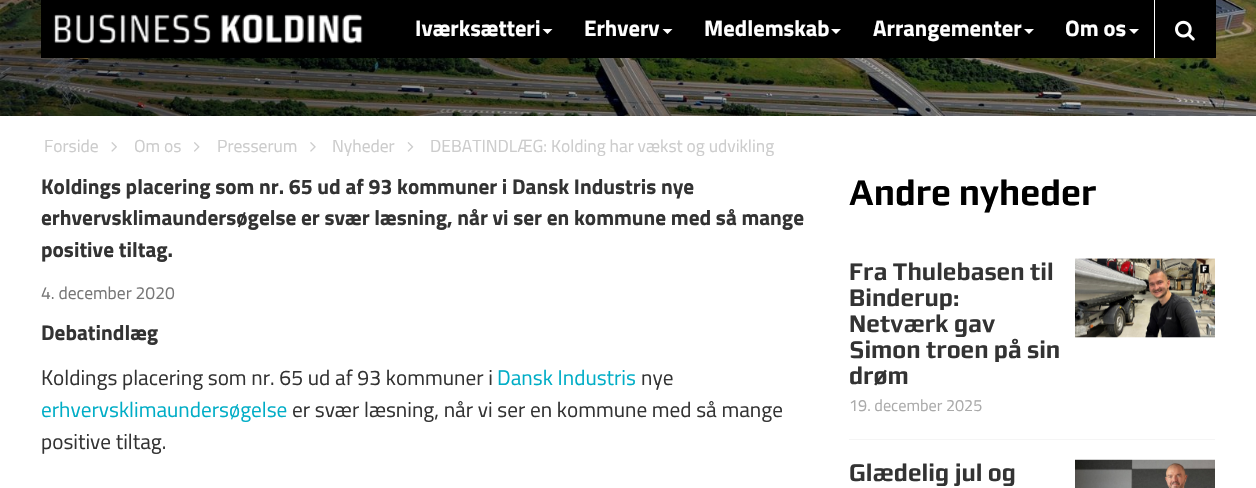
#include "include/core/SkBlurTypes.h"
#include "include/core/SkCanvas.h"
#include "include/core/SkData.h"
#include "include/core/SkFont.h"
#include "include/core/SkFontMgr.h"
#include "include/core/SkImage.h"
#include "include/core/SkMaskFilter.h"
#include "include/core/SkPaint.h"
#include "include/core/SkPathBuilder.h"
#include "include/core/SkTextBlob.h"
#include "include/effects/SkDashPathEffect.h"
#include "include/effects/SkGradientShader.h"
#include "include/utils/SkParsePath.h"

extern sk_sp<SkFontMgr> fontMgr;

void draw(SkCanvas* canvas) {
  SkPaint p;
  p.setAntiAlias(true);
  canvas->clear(SK_ColorWHITE);
  canvas->drawImageRect(SkImages::DeferredFromEncodedData(SkData::MakeFromFileName("images/1.png")), SkRect::MakeLTRB(0, 0, 1256, 116), SkSamplingOptions());
  canvas->drawImageRect(SkImages::DeferredFromEncodedData(SkData::MakeFromFileName("images/2.png")), SkRect::MakeLTRB(0, 0, 1256, 116), SkSamplingOptions());
  p.setColor(SK_ColorBLACK);
  canvas->drawRect(SkRect::MakeLTRB(41, 0, 1216, 58), p);
  canvas->drawImageRect(SkImages::DeferredFromEncodedData(SkData::MakeFromFileName("images/3.png")), SkRect::MakeLTRB(53, 13, 363, 44), SkSamplingOptions());
  p.setColor(SK_ColorWHITE);
  canvas->drawPath(SkPathBuilder().moveTo(542.5f, 29).lineTo(552.5f, 29).lineTo(547.5f, 34).close().detach(), p);
  canvas->drawPath(SkPathBuilder().moveTo(662.5f, 29).lineTo(672.5f, 29).lineTo(667.5f, 34).close().detach(), p);
  canvas->drawPath(SkPathBuilder().moveTo(831, 29).lineTo(841, 29).lineTo(836, 34).close().detach(), p);
  canvas->drawPath(SkPathBuilder().moveTo(1024, 29).lineTo(1034, 29).lineTo(1029, 34).close().detach(), p);
  canvas->drawPath(SkPathBuilder().moveTo(1129, 29).lineTo(1139, 29).lineTo(1134, 34).close().detach(), p);
  canvas->drawRect(SkRect::MakeLTRB(1154, 0, 1155, 58), p);
  canvas->drawImageRect(SkImages::DeferredFromEncodedData(SkData::MakeFromFileName("images/4.png")), SkRect::MakeLTRB(1175, 20, 1195, 41), SkSamplingOptions());
  canvas->drawImageRect(SkImages::DeferredFromEncodedData(SkData::MakeFromFileName("images/5.png")), SkRect::MakeLTRB(111, 142, 117, 152), SkSamplingOptions());
  canvas->drawImageRect(SkImages::DeferredFromEncodedData(SkData::MakeFromFileName("images/6.png")), SkRect::MakeLTRB(194, 142, 200, 152), SkSamplingOptions());
  canvas->drawImageRect(SkImages::DeferredFromEncodedData(SkData::MakeFromFileName("images/7.png")), SkRect::MakeLTRB(310, 142, 316, 152), SkSamplingOptions());
  canvas->drawImageRect(SkImages::DeferredFromEncodedData(SkData::MakeFromFileName("images/8.png")), SkRect::MakeLTRB(407, 142, 414, 152), SkSamplingOptions());
  p.setColor(SkColorSetRGB(245, 245, 245));
  canvas->drawRect(SkRect::MakeLTRB(849, 439, 1215, 440), p);
  canvas->drawImageRect(SkImages::DeferredFromEncodedData(SkData::MakeFromFileName("images/9.png")), SkRect::MakeLTRB(1075, 258, 1215, 338), SkSamplingOptions());
  canvas->drawImageRect(SkImages::DeferredFromEncodedData(SkData::MakeFromFileName("images/10.png")), SkRect::MakeLTRB(1075, 459, 1215, 488), SkSamplingOptions());
  SkFont font1(fontMgr->matchFamilyStyle("Titillium Web", SkFontStyle::Bold()), 22.5f);
  font1.setSubpixel(true);
  p.setColor(SK_ColorWHITE);
  canvas->drawString("Iværksætteri", 415, 36, font1, p);
  canvas->drawString("Erhverv", 584, 36, font1, p);
  canvas->drawString("Medlemskab", 704, 36, font1, p);
  canvas->drawString("Arrangementer", 873, 36, font1, p);
  canvas->drawString("Om os", 1065, 36, font1, p);
  SkFont font2(fontMgr->matchFamilyStyle("Titillium Web", SkFontStyle::Normal()), 17.5f);
  font2.setSubpixel(true);
  p.setColor(SkColorSetRGB(204, 204, 204));
  canvas->drawString("Forside", 44, 152, font2, p);
  canvas->drawString("Om os", 134, 152, font2, p);
  canvas->drawString("Presserum", 217, 152, font2, p);
  canvas->drawString("Nyheder", 332, 152, font2, p);
  canvas->drawString("DEBATINDLÆG: Kolding har vækst og udvikling", 430, 152, font2, p);
  SkFont font3(fontMgr->matchFamilyStyle("Titillium Web", SkFontStyle::Bold()), 21.25f);
  font3.setSubpixel(true);
  p.setColor(SkColorSetRGB(51, 51, 51));
  canvas->drawString("Koldings placering som nr. 65 ud af 93 kommuner i Dansk Industris nye", 41, 194, font3, p);
  canvas->drawString("erhvervsklimaundersøgelse er svær læsning, når vi ser en kommune med så mange", 41, 225, font3, p);
  canvas->drawString("positive tiltag.", 41, 257, font3, p);
  p.setColor(SkColorSetRGB(119, 119, 119));
  canvas->drawString("4. december 2020", 41, 299, font2, p);
  p.setColor(SkColorSetRGB(51, 51, 51));
  canvas->drawString("Debatindlæg", 41, 340, font3, p);
  SkFont font4(fontMgr->matchFamilyStyle("Titillium Web", SkFontStyle::Normal()), 21.25f);
  font4.setSubpixel(true);
  canvas->drawString("Koldings placering som nr. 65 ud af 93 kommuner i", 41, 385, font4, p);
  p.setColor(SkColorSetRGB(0, 173, 198));
  canvas->drawString("Dansk Industris", 497, 385, font4, p);
  p.setColor(SkColorSetRGB(51, 51, 51));
  canvas->drawString("nye", 641, 385, font4, p);
  p.setColor(SkColorSetRGB(0, 173, 198));
  canvas->drawString("erhvervsklimaundersøgelse", 41, 417, font4, p);
  p.setColor(SkColorSetRGB(51, 51, 51));
  canvas->drawString("er svær læsning, når vi ser en kommune med så mange", 292, 417, font4, p);
  canvas->drawString("positive tiltag.", 41, 449, font4, p);
  SkFont font5(fontMgr->matchFamilyStyle("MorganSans", SkFontStyle::Bold()), 35);
  font5.setSubpixel(true);
  p.setColor(SK_ColorBLACK);
  canvas->drawString("Andre nyheder", 849, 205, font5, p);
  SkFont font6(fontMgr->matchFamilyStyle("MorganSans", SkFontStyle::Bold()), 23.75f);
  font6.setSubpixel(true);
  p.setColor(SkColorSetRGB(51, 51, 51));
  canvas->drawString("Fra Thulebasen til", 849, 280, font6, p);
  canvas->drawString("Binderup:", 849, 306, font6, p);
  canvas->drawString("Netværk gav", 849, 332, font6, p);
  canvas->drawString("Simon troen på sin", 849, 358, font6, p);
  canvas->drawString("drøm", 849, 384, font6, p);
  SkFont font7(fontMgr->matchFamilyStyle("Titillium Web", SkFontStyle::Normal()), 16.25f);
  font7.setSubpixel(true);
  p.setColor(SkColorSetRGB(170, 170, 170));
  canvas->drawString("19. december 2025", 849, 411, font7, p);
  p.setColor(SkColorSetRGB(51, 51, 51));
  canvas->drawString("Glædelig jul og", 849, 481, font6, p);
}
